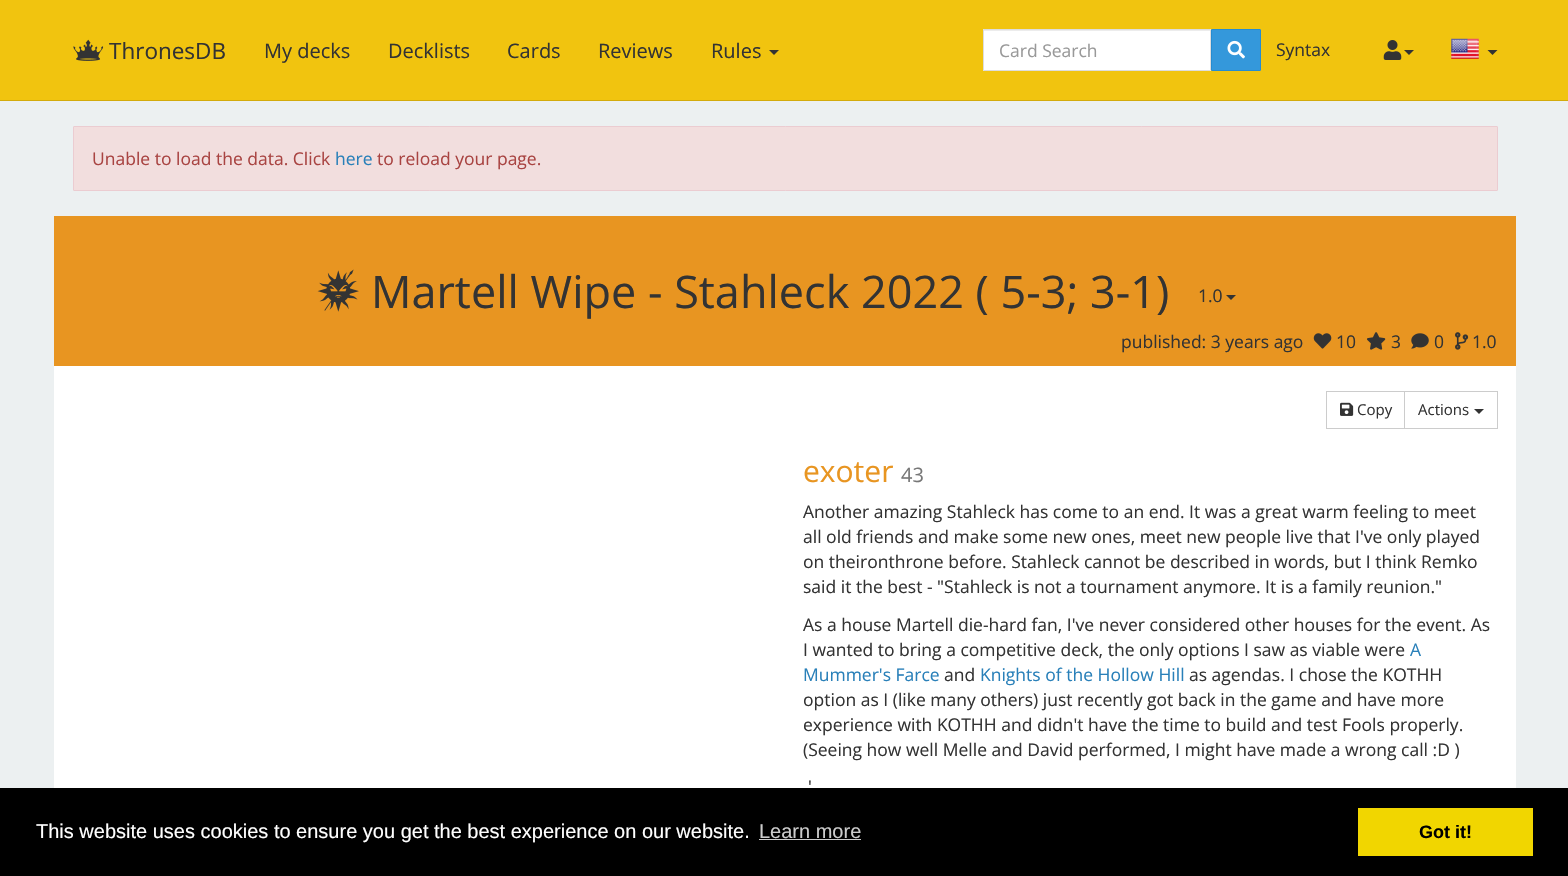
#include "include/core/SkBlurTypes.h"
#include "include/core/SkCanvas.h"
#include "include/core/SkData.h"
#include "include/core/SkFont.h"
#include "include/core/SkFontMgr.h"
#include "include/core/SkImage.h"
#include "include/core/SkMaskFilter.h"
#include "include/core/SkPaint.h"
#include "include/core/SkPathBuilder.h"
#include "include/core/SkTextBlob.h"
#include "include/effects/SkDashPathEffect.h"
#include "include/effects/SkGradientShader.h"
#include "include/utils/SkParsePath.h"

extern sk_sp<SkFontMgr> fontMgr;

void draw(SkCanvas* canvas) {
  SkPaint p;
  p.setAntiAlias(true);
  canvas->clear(SkColorSetRGB(236, 240, 241));
  p.setColor(SkColorSetRGB(241, 196, 15));
  canvas->drawRect(SkRect::MakeLTRB(0, 0, 1568, 100), p);
  p.setColor(SkColorSetRGB(211, 171, 12));
  canvas->drawRect(SkRect::MakeLTRB(0, 100, 1568, 101), p);
  canvas->drawImageRect(SkImages::DeferredFromEncodedData(SkData::MakeFromFileName("images/1.png")), SkRect::MakeLTRB(73, 39, 104, 61), SkSamplingOptions());
  p.setColor(SkColorSetRGB(51, 51, 51));
  canvas->drawPath(SkPathBuilder().moveTo(769, 50).lineTo(779, 50).lineTo(774, 55).close().detach(), p);
  p.setColor(SK_ColorWHITE);
  canvas->drawPath(SkPathBuilder().moveTo(984, 29).lineTo(1211, 29).lineTo(1211, 71).lineTo(984, 71).cubicTo(983.5f, 71, 983, 70.5f, 983, 70).lineTo(983, 30).cubicTo(983, 29.5f, 983.5f, 29, 984, 29).close().detach(), p);
  p.setColor(SkColorSetRGB(236, 236, 236));
  canvas->drawRect(SkRect::MakeLTRB(984, 30, 1210, 31), p);
  p.setStyle(SkPaint::kStroke_Style);
  p.setStrokeWidth(1);
  p.setColor(SkColorSetRGB(221, 221, 221));
  canvas->drawPath(SkPathBuilder().moveTo(984, 29.5f).lineTo(1210.5f, 29.5f).lineTo(1210.5f, 70.5f).lineTo(984, 70.5f).cubicTo(983.5f, 70.5f, 983.5f, 70.5f, 983.5f, 70).lineTo(983.5f, 30).cubicTo(983.5f, 29.5f, 983.5f, 29.5f, 984, 29.5f).close().detach(), p);
  p.setStyle(SkPaint::kFill_Style);
  p.setColor(SkColorSetRGB(52, 152, 219));
  canvas->drawRoundRect(SkRect::MakeLTRB(1211.5f, 29.5f, 1260.5f, 70.5f), 0.5f, 0.5f, p);
  p.setStyle(SkPaint::kStroke_Style);
  p.setColor(SkColorSetRGB(37, 140, 209));
  canvas->drawRoundRect(SkRect::MakeLTRB(1211.5f, 29.5f, 1260.5f, 70.5f), 0.5f, 0.5f, p);
  canvas->drawImageRect(SkImages::DeferredFromEncodedData(SkData::MakeFromFileName("images/2.png")), SkRect::MakeLTRB(1227, 40, 1245, 59), SkSamplingOptions());
  canvas->drawImageRect(SkImages::DeferredFromEncodedData(SkData::MakeFromFileName("images/3.png")), SkRect::MakeLTRB(1383, 40, 1402, 60), SkSamplingOptions());
  p.setStyle(SkPaint::kFill_Style);
  p.setColor(SkColorSetRGB(51, 51, 51));
  canvas->drawPath(SkPathBuilder().moveTo(1404, 50).lineTo(1414, 50).lineTo(1409, 55).close().detach(), p);
  canvas->drawImageRect(SkImages::DeferredFromEncodedData(SkData::MakeFromFileName("images/4.png")), SkRect::MakeLTRB(1451, 38, 1479, 59), SkSamplingOptions());
  canvas->drawPath(SkPathBuilder().moveTo(1487.5f, 50).lineTo(1497.5f, 50).lineTo(1492.5f, 55).close().detach(), p);
  p.setColor(SkColorSetRGB(242, 222, 222));
  canvas->drawRoundRect(SkRect::MakeLTRB(73.5f, 126.5f, 1497.5f, 190.5f), 0.5f, 0.5f, p);
  p.setStyle(SkPaint::kStroke_Style);
  p.setColor(SkColorSetRGB(235, 204, 209));
  canvas->drawRoundRect(SkRect::MakeLTRB(73.5f, 126.5f, 1497.5f, 190.5f), 0.5f, 0.5f, p);
  p.setStyle(SkPaint::kFill_Style);
  p.setColor(SkColorSetRGB(232, 149, 33));
  canvas->drawRect(SkRect::MakeLTRB(54, 216, 1516, 366), p);
  canvas->drawImageRect(SkImages::DeferredFromEncodedData(SkData::MakeFromFileName("images/5.png")), SkRect::MakeLTRB(317, 269, 359, 312), SkSamplingOptions());
  p.setColor(SkColorSetRGB(51, 51, 51));
  canvas->drawPath(SkPathBuilder().moveTo(1226, 295).lineTo(1236, 295).lineTo(1231, 300).close().detach(), p);
  canvas->drawImageRect(SkImages::DeferredFromEncodedData(SkData::MakeFromFileName("images/6.png")), SkRect::MakeLTRB(1313, 333, 1332, 349), SkSamplingOptions());
  canvas->drawImageRect(SkImages::DeferredFromEncodedData(SkData::MakeFromFileName("images/7.png")), SkRect::MakeLTRB(1367, 332, 1386, 350), SkSamplingOptions());
  canvas->drawImageRect(SkImages::DeferredFromEncodedData(SkData::MakeFromFileName("images/8.png")), SkRect::MakeLTRB(1411, 333, 1429, 349), SkSamplingOptions());
  canvas->drawImageRect(SkImages::DeferredFromEncodedData(SkData::MakeFromFileName("images/9.png")), SkRect::MakeLTRB(1455, 332, 1469, 350), SkSamplingOptions());
  p.setColor(SK_ColorWHITE);
  canvas->drawRect(SkRect::MakeLTRB(54, 366, 1516, 788), p);
  p.setStyle(SkPaint::kStroke_Style);
  p.setColor(SkColorSetRGB(204, 204, 204));
  canvas->drawRect(SkRect::MakeLTRB(1326.5f, 391.5f, 1404.5f, 428.5f), p);
  canvas->drawImageRect(SkImages::DeferredFromEncodedData(SkData::MakeFromFileName("images/10.png")), SkRect::MakeLTRB(1340, 402, 1354, 416), SkSamplingOptions());
  canvas->drawRect(SkRect::MakeLTRB(1404.5f, 391.5f, 1497.5f, 428.5f), p);
  p.setStyle(SkPaint::kFill_Style);
  p.setColor(SkColorSetRGB(51, 51, 51));
  canvas->drawPath(SkPathBuilder().moveTo(1474, 409).lineTo(1484, 409).lineTo(1479, 414).close().detach(), p);
  p.setColor(SK_ColorBLACK);
  canvas->drawRect(SkRect::MakeLTRB(0, 788, 1568, 876), p);
  p.setColor(SkColorSetRGB(204, 204, 204));
  canvas->drawRect(SkRect::MakeLTRB(759, 839, 861, 840), p);
  p.setColor(SkColorSetRGB(241, 214, 0));
  canvas->drawRect(SkRect::MakeLTRB(1358, 808, 1533, 856), p);
  SkFont font1(fontMgr->matchFamilyStyle("Open Sans", SkFontStyle::Normal()), 22.5f);
  font1.setSubpixel(true);
  p.setColor(SkColorSetRGB(51, 51, 51));
  canvas->drawString("ThronesDB", 109, 59, font1, p);
  SkFont font2(fontMgr->matchFamilyStyle("Open Sans", SkFontStyle::Normal()), 20);
  font2.setSubpixel(true);
  canvas->drawString("My decks", 264, 58, font2, p);
  canvas->drawString("Decklists", 388, 58, font2, p);
  canvas->drawString("Cards", 507, 58, font2, p);
  canvas->drawString("Reviews", 598, 58, font2, p);
  canvas->drawString("Rules", 711, 58, font2, p);
  SkFont font3(fontMgr->matchFamilyStyle("Open Sans", SkFontStyle::Normal()), 17.5f);
  font3.setSubpixel(true);
  p.setColor(SkColorSetRGB(153, 153, 153));
  canvas->drawString("Card Search", 999, 57, font3, p);
  p.setColor(SkColorSetRGB(51, 51, 51));
  canvas->drawString("Syntax", 1276, 56, font3, p);
  p.setColor(SkColorSetRGB(169, 68, 66));
  canvas->drawString("Unable to load the data. Click", 92, 165, font3, p);
  p.setColor(SkColorSetRGB(41, 128, 185));
  canvas->drawString("here", 335, 165, font3, p);
  p.setColor(SkColorSetRGB(169, 68, 66));
  canvas->drawString("to reload your page.", 377, 165, font3, p);
  SkFont font4(fontMgr->matchFamilyStyle("Open Sans", SkFontStyle::Normal()), 45);
  font4.setSubpixel(true);
  p.setColor(SkColorSetRGB(51, 51, 51));
  canvas->drawString("Martell Wipe - Stahleck 2022 ( 5-3; 3-1)", 371, 308, font4, p);
  canvas->drawString("1.0", 1198, 302, font3, p);
  canvas->drawString("published: 3 years ago", 1121, 348, font3, p);
  canvas->drawString("10", 1336, 348, font3, p);
  canvas->drawString("3", 1391, 348, font3, p);
  canvas->drawString("0", 1434, 348, font3, p);
  canvas->drawString("1.0", 1472, 348, font3, p);
  SkFont font5(fontMgr->matchFamilyStyle("Open Sans", SkFontStyle::Normal()), 15);
  font5.setSubpixel(true);
  canvas->drawString("Copy", 1357, 415, font5, p);
  canvas->drawString("Actions", 1418, 415, font5, p);
  SkFont font6(fontMgr->matchFamilyStyle("Open Sans", SkFontStyle::Normal()), 30);
  font6.setSubpixel(true);
  p.setColor(SkColorSetRGB(232, 149, 33));
  canvas->drawString("exoter", 803, 482, font6, p);
  p.setColor(SkColorSetRGB(119, 119, 119));
  canvas->drawString("43", 901, 482, font2, p);
  p.setColor(SkColorSetRGB(51, 51, 51));
  canvas->drawString("Another amazing Stahleck has come to an end. It was a great warm feeling to meet", 803, 518, font3, p);
  canvas->drawString("all old friends and make some new ones, meet new people live that I've only played", 803, 543, font3, p);
  canvas->drawString("on theironthrone before. Stahleck cannot be described in words, but I think Remko", 803, 568, font3, p);
  canvas->drawString("said it the best - \"Stahleck is not a tournament anymore. It is a family reunion.\"", 803, 593, font3, p);
  canvas->drawString("As a house Martell die-hard fan, I've never considered other houses for the event. As", 803, 631, font3, p);
  canvas->drawString("I wanted to bring a competitive deck, the only options I saw as viable were", 803, 656, font3, p);
  p.setColor(SkColorSetRGB(41, 128, 185));
  canvas->drawString("A", 1410, 656, font3, p);
  canvas->drawString("Mummer's Farce", 803, 681, font3, p);
  p.setColor(SkColorSetRGB(51, 51, 51));
  canvas->drawString("and", 944, 681, font3, p);
  p.setColor(SkColorSetRGB(41, 128, 185));
  canvas->drawString("Knights of the Hollow Hill", 980, 681, font3, p);
  p.setColor(SkColorSetRGB(51, 51, 51));
  canvas->drawString("as agendas. I chose the KOTHH", 1189, 681, font3, p);
  canvas->drawString("option as I (like many others) just recently got back in the game and have more", 803, 706, font3, p);
  canvas->drawString("experience with KOTHH and didn't have the time to build and test Fools properly.", 803, 731, font3, p);
  canvas->drawString("(Seeing how well Melle and David performed, I might have made a wrong call :D )", 803, 756, font3, p);
  canvas->drawString("'", 808, 793, font3, p);
  SkFont font7(fontMgr->matchFamilyStyle("Liberation Sans", SkFontStyle::Normal()), 20);
  font7.setSubpixel(true);
  p.setColor(SK_ColorWHITE);
  canvas->drawString("This website uses cookies to ensure you get the best experience on our website.", 36, 838, font7, p);
  p.setColor(SkColorSetRGB(204, 204, 204));
  canvas->drawString("Learn more", 759, 838, font7, p);
  SkFont font8(fontMgr->matchFamilyStyle("Liberation Sans", SkFontStyle::Bold()), 18);
  font8.setSubpixel(true);
  p.setColor(SK_ColorBLACK);
  canvas->drawString("Got it!", 1419, 838, font8, p);
}
